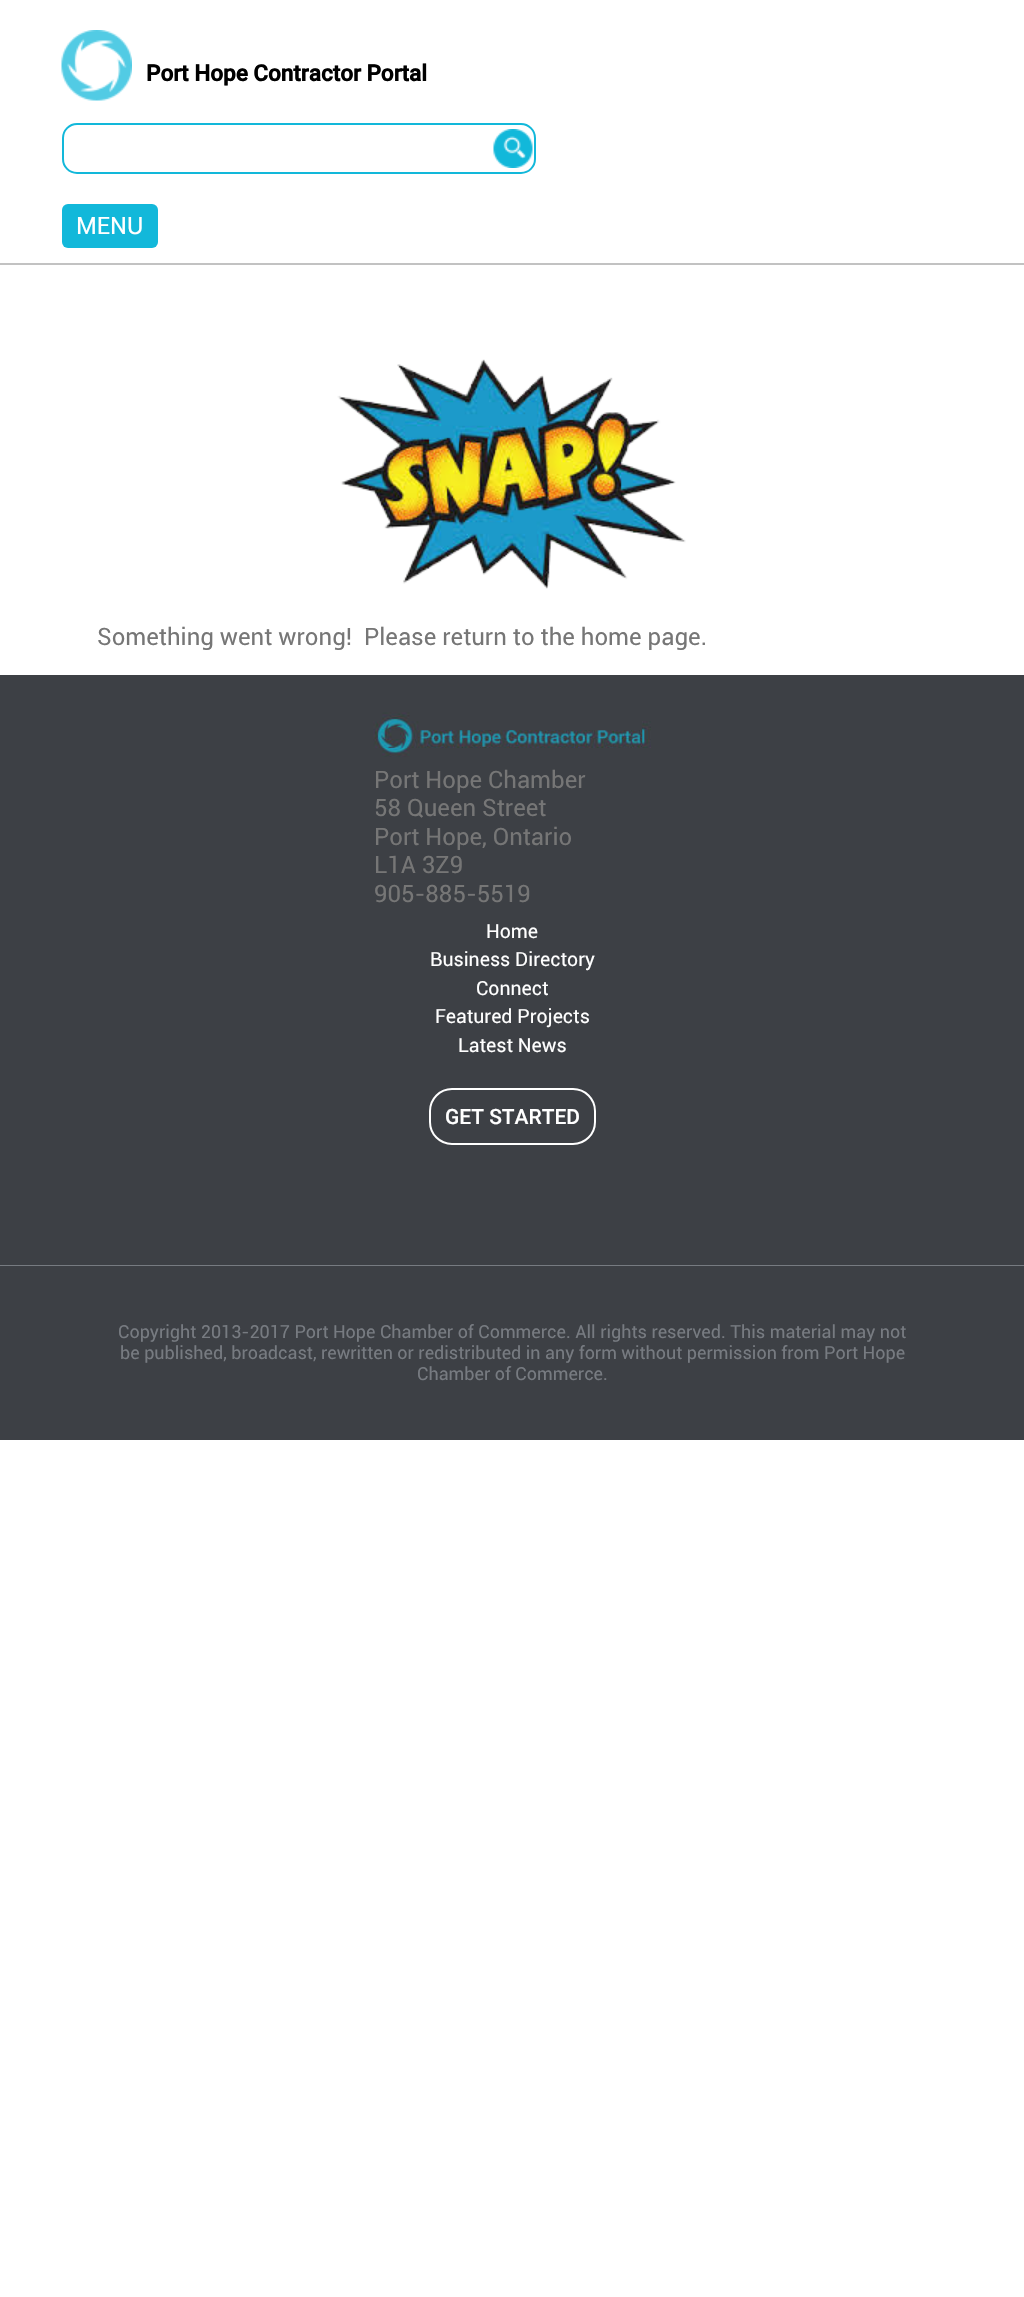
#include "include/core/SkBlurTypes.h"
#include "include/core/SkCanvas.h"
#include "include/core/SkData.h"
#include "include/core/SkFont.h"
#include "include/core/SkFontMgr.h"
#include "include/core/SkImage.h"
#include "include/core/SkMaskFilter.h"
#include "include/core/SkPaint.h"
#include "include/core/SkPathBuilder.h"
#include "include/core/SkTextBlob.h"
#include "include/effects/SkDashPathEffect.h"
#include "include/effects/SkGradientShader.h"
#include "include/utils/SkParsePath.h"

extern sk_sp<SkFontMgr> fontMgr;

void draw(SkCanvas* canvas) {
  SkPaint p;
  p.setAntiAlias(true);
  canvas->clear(SK_ColorWHITE);
  p.setColor(SkColorSetRGB(194, 194, 194));
  canvas->drawRect(SkRect::MakeLTRB(0, 263, 1024, 265), p);
  canvas->drawImageRect(SkImages::DeferredFromEncodedData(SkData::MakeFromFileName("images/1.png")), SkRect::MakeLTRB(61, 30, 132, 101), SkSamplingOptions());
  p.setStyle(SkPaint::kStroke_Style);
  p.setStrokeWidth(2);
  p.setColor(SkColorSetRGB(18, 184, 218));
  canvas->drawRoundRect(SkRect::MakeLTRB(63, 124, 535, 173), 14, 14, p);
  canvas->drawImageRect(SkImages::DeferredFromEncodedData(SkData::MakeFromFileName("images/2.png")), SkRect::MakeLTRB(493, 129, 533, 168), SkSamplingOptions());
  p.setStyle(SkPaint::kFill_Style);
  canvas->drawRoundRect(SkRect::MakeLTRB(62, 204, 158, 248), 6, 6, p);
  canvas->drawImageRect(SkImages::DeferredFromEncodedData(SkData::MakeFromFileName("images/3.png")), SkRect::MakeLTRB(337, 359, 686, 589), SkSamplingOptions());
  p.setColor(SkColorSetRGB(61, 64, 69));
  canvas->drawRect(SkRect::MakeLTRB(0, 675, 1024, 1265), p);
  p.setColor(SkColorSetRGB(119, 123, 129));
  canvas->drawRect(SkRect::MakeLTRB(0, 1265, 1024, 1266), p);
  canvas->drawImageRect(SkImages::DeferredFromEncodedData(SkData::MakeFromFileName("images/4.png")), SkRect::MakeLTRB(373, 712, 651, 757), SkSamplingOptions());
  p.setStyle(SkPaint::kStroke_Style);
  p.setColor(SK_ColorWHITE);
  canvas->drawRoundRect(SkRect::MakeLTRB(430, 1089, 595, 1144), 22, 22, p);
  p.setStyle(SkPaint::kFill_Style);
  p.setColor(SkColorSetRGB(61, 64, 69));
  canvas->drawRect(SkRect::MakeLTRB(0, 1266, 1024, 1440), p);
  SkFont font1(fontMgr->matchFamilyStyle("Roboto", SkFontStyle::Bold()), 22.5f);
  font1.setSubpixel(true);
  p.setColor(SK_ColorBLACK);
  canvas->drawString("Port Hope Contractor Portal", 146, 81, font1, p);
  SkFont font2(fontMgr->matchFamilyStyle("Roboto", SkFontStyle::Normal()), 24);
  font2.setSubpixel(true);
  p.setColor(SK_ColorWHITE);
  canvas->drawString("MENU", 76, 234, font2, p);
  p.setColor(SkColorSetRGB(118, 118, 118));
  canvas->drawString("Something went wrong!  Please return to the home page.", 97, 645, font2, p);
  canvas->drawString("Port Hope Chamber", 374, 788, font2, p);
  canvas->drawString("58 Queen Street", 374, 816, font2, p);
  canvas->drawString("Port Hope, Ontario", 374, 845, font2, p);
  canvas->drawString("L1A 3Z9", 374, 873, font2, p);
  canvas->drawString("905-885-5519", 374, 902, font2, p);
  SkFont font3(fontMgr->matchFamilyStyle("Roboto", SkFontStyle::Normal()), 19.5f);
  font3.setSubpixel(true);
  p.setColor(SK_ColorWHITE);
  canvas->drawString("Home", 486, 938, font3, p);
  canvas->drawString("Business Directory", 430, 966, font3, p);
  canvas->drawString("Connect", 476, 995, font3, p);
  canvas->drawString("Featured Projects", 435, 1023, font3, p);
  canvas->drawString("Latest News", 458, 1052, font3, p);
  SkFont font4(fontMgr->matchFamilyStyle("Roboto", SkFontStyle(500, SkFontStyle::kNormal_Width, SkFontStyle::kUpright_Slant)), 21);
  font4.setSubpixel(true);
  canvas->drawString("GET STARTED", 445, 1124, font4, p);
  SkFont font5(fontMgr->matchFamilyStyle("Roboto", SkFontStyle::Normal()), 18);
  font5.setSubpixel(true);
  p.setColor(SkColorSetRGB(119, 123, 129));
  canvas->drawString("Copyright 2013-2017 Port Hope Chamber of Commerce. All rights reserved. This material may not", 118, 1338, font5, p);
  canvas->drawString("be published, broadcast, rewritten or redistributed in any form without permission from Port Hope", 120, 1359, font5, p);
  canvas->drawString("Chamber of Commerce.", 417, 1380, font5, p);
}
